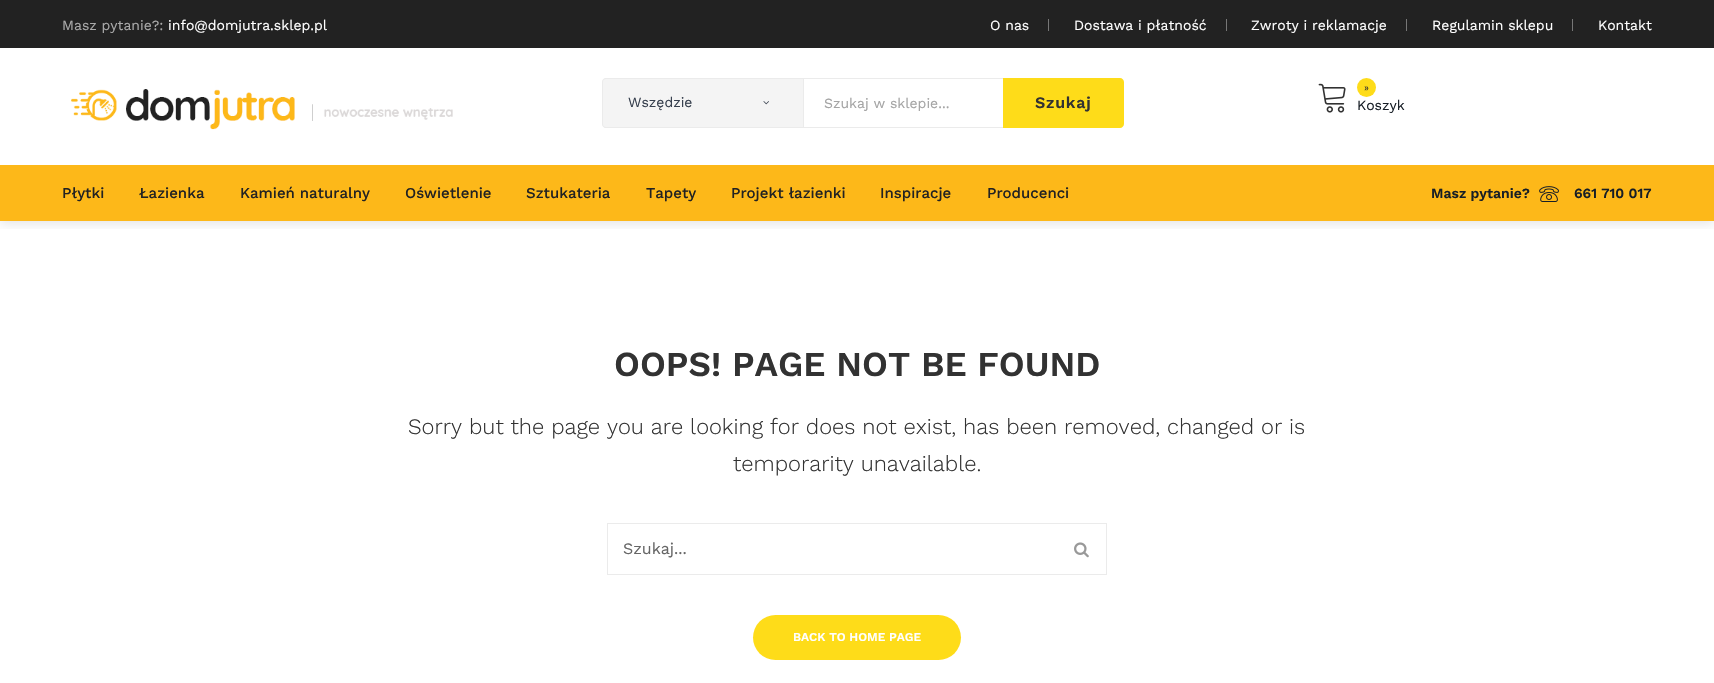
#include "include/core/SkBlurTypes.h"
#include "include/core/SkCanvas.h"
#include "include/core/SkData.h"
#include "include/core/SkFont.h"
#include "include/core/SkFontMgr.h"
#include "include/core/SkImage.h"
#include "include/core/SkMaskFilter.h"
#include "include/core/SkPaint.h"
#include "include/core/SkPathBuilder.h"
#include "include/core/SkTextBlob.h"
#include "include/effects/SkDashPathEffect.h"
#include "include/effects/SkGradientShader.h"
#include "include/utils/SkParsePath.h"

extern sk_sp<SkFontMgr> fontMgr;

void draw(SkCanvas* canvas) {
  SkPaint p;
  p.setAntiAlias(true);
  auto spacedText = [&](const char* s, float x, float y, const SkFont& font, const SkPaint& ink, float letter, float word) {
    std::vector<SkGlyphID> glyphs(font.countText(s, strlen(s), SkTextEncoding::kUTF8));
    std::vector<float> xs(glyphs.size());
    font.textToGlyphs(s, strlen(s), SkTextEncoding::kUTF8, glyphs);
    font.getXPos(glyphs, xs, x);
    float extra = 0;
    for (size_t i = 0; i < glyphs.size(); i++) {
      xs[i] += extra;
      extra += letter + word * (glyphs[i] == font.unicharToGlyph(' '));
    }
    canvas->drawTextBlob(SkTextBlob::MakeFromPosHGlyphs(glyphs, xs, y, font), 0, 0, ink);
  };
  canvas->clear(SK_ColorWHITE);
  canvas->save();
  canvas->clipRect(SkRect::MakeLTRB(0, 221, 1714, 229));
  p.setColor(SkColorSetARGB(26, 0, 0, 0));
  p.setMaskFilter(SkMaskFilter::MakeBlur(kNormal_SkBlurStyle, 5.5f));
  canvas->drawRect(SkRect::MakeLTRB(0, 3, 1714, 224), p);
  p.setMaskFilter(nullptr);
  canvas->restore();
  p.setColor(SkColorSetRGB(34, 34, 34));
  canvas->drawRect(SkRect::MakeLTRB(0, 0, 1714, 48), p);
  p.setColor(SkColorSetRGB(119, 119, 119));
  canvas->drawRect(SkRect::MakeLTRB(1048, 19, 1049, 31), p);
  canvas->drawRect(SkRect::MakeLTRB(1226, 19, 1227, 31), p);
  canvas->drawRect(SkRect::MakeLTRB(1406, 19, 1407, 31), p);
  canvas->drawRect(SkRect::MakeLTRB(1572, 19, 1573, 31), p);
  canvas->drawImageRect(SkImages::DeferredFromEncodedData(SkData::MakeFromFileName("images/1.png")), SkRect::MakeLTRB(71, 89, 453, 130), SkSamplingOptions());
  p.setColor(SkColorSetRGB(244, 244, 244));
  canvas->drawPath(SkPathBuilder().moveTo(606, 78).lineTo(803, 78).lineTo(803, 128).lineTo(606, 128).cubicTo(604, 128, 602, 126, 602, 124).lineTo(602, 82).cubicTo(602, 80, 604, 78, 606, 78).close().detach(), p);
  p.setColor(SkColorSetRGB(235, 235, 235));
  canvas->drawPath(SkPathBuilder(SkPathFillType::kEvenOdd).moveTo(606, 78).lineTo(803, 78).lineTo(803, 128).lineTo(606, 128).cubicTo(604, 128, 602, 126, 602, 124).lineTo(602, 82).cubicTo(602, 80, 604, 78, 606, 78).close().moveTo(606, 79).lineTo(803, 79).lineTo(803, 127).lineTo(606, 127).cubicTo(604, 127, 603, 126, 603, 124).lineTo(603, 82).cubicTo(603, 80, 604, 79, 606, 79).close().detach(), p);
  canvas->drawImageRect(SkImages::DeferredFromEncodedData(SkData::MakeFromFileName("images/2.png")), SkRect::MakeLTRB(763, 101, 769, 105), SkSamplingOptions());
  canvas->drawRect(SkRect::MakeLTRB(803, 78, 1003, 79), p);
  canvas->drawRect(SkRect::MakeLTRB(803, 127, 1003, 128), p);
  canvas->drawRect(SkRect::MakeLTRB(803, 78, 804, 128), p);
  p.setColor(SkColorSetRGB(254, 220, 25));
  canvas->drawPath(SkPathBuilder().moveTo(1003, 78).lineTo(1120, 78).cubicTo(1122, 78, 1124, 80, 1124, 82).lineTo(1124, 124).cubicTo(1124, 126, 1122, 128, 1120, 128).lineTo(1003, 128).close().detach(), p);
  canvas->drawImageRect(SkImages::DeferredFromEncodedData(SkData::MakeFromFileName("images/3.png")), SkRect::MakeLTRB(1318, 83, 1346, 113), SkSamplingOptions());
  canvas->drawCircle(1366.5f, 87.5f, 9.5f, p);
  p.setColor(SkColorSetRGB(253, 184, 25));
  canvas->drawRect(SkRect::MakeLTRB(0, 165, 1714, 221), p);
  canvas->drawImageRect(SkImages::DeferredFromEncodedData(SkData::MakeFromFileName("images/4.png")), SkRect::MakeLTRB(1539, 186, 1559, 202), SkSamplingOptions());
  p.setStyle(SkPaint::kStroke_Style);
  p.setStrokeWidth(1);
  p.setColor(SkColorSetRGB(235, 235, 235));
  canvas->drawRect(SkRect::MakeLTRB(607.5f, 523.5f, 1106.5f, 574.5f), p);
  canvas->drawImageRect(SkImages::DeferredFromEncodedData(SkData::MakeFromFileName("images/5.png")), SkRect::MakeLTRB(1074, 542, 1089, 558), SkSamplingOptions());
  p.setStyle(SkPaint::kFill_Style);
  p.setColor(SkColorSetRGB(254, 220, 25));
  canvas->drawRoundRect(SkRect::MakeLTRB(753, 615, 961, 660), 22.5f, 22.5f, p);
  SkFont font1(fontMgr->matchFamilyStyle("Work Sans", SkFontStyle::Normal()), 14);
  font1.setSubpixel(true);
  p.setColor(SkColorSetRGB(170, 170, 170));
  canvas->drawString("Masz pytanie?:", 62, 30, font1, p);
  p.setColor(SK_ColorWHITE);
  canvas->drawString("info@domjutra.sklep.pl", 168, 30, font1, p);
  canvas->drawString("O nas", 990, 30, font1, p);
  canvas->drawString("Dostawa i płatność", 1074, 30, font1, p);
  canvas->drawString("Zwroty i reklamacje", 1251, 30, font1, p);
  canvas->drawString("Regulamin sklepu", 1432, 30, font1, p);
  canvas->drawString("Kontakt", 1598, 30, font1, p);
  p.setColor(SkColorSetRGB(54, 63, 77));
  canvas->drawString("Wszędzie", 628, 107, font1, p);
  p.setColor(SkColorSetRGB(164, 164, 164));
  canvas->drawString("Szukaj w sklepie...", 824, 108, font1, p);
  SkFont font2(fontMgr->matchFamilyStyle("Work Sans", SkFontStyle(600, SkFontStyle::kNormal_Width, SkFontStyle::kUpright_Slant)), 16);
  font2.setSubpixel(true);
  p.setColor(SkColorSetRGB(50, 50, 50));
  spacedText("Szukaj", 1035, 108, font2, p, 0.75f, 0);
  SkFont font3(fontMgr->matchFamilyStyle("Work Sans", SkFontStyle::Normal()), 10);
  font3.setSubpixel(true);
  canvas->drawString("»", 1364, 91, font3, p);
  p.setColor(SkColorSetRGB(23, 30, 38));
  canvas->drawString("Koszyk", 1357, 110, font1, p);
  SkFont font4(fontMgr->matchFamilyStyle("Work Sans", SkFontStyle(500, SkFontStyle::kNormal_Width, SkFontStyle::kUpright_Slant)), 15);
  font4.setSubpixel(true);
  p.setColor(SkColorSetRGB(34, 34, 34));
  canvas->drawString("Płytki", 62, 198, font4, p);
  canvas->drawString("Łazienka", 139, 198, font4, p);
  canvas->drawString("Kamień naturalny", 240, 198, font4, p);
  canvas->drawString("Oświetlenie", 405, 198, font4, p);
  canvas->drawString("Sztukateria", 526, 198, font4, p);
  canvas->drawString("Tapety", 646, 198, font4, p);
  canvas->drawString("Projekt łazienki", 731, 198, font4, p);
  canvas->drawString("Inspiracje", 880, 198, font4, p);
  canvas->drawString("Producenci", 987, 198, font4, p);
  SkFont font5(fontMgr->matchFamilyStyle("Work Sans", SkFontStyle(600, SkFontStyle::kNormal_Width, SkFontStyle::kUpright_Slant)), 14);
  font5.setSubpixel(true);
  p.setColor(SkColorSetRGB(23, 30, 38));
  canvas->drawString("Masz pytanie?", 1431, 198, font5, p);
  canvas->drawString("661 710 017", 1574, 198, font5, p);
  SkFont font6(fontMgr->matchFamilyStyle("Work Sans", SkFontStyle(600, SkFontStyle::kNormal_Width, SkFontStyle::kUpright_Slant)), 35);
  font6.setSubpixel(true);
  p.setColor(SkColorSetRGB(50, 50, 50));
  canvas->drawString("OOPS! PAGE NOT BE FOUND", 614, 376, font6, p);
  SkFont font7(fontMgr->matchFamilyStyle("Work Sans", SkFontStyle(300, SkFontStyle::kNormal_Width, SkFontStyle::kUpright_Slant)), 22);
  font7.setSubpixel(true);
  canvas->drawString("Sorry but the page you are looking for does not exist, has been removed, changed or is", 408, 434, font7, p);
  canvas->drawString("temporarity unavailable.", 733, 471, font7, p);
  SkFont font8(fontMgr->matchFamilyStyle("Work Sans", SkFontStyle::Normal()), 16);
  font8.setSubpixel(true);
  p.setColor(SkColorSetRGB(102, 102, 102));
  canvas->drawString("Szukaj...", 623, 554, font8, p);
  SkFont font9(fontMgr->matchFamilyStyle("Work Sans", SkFontStyle(600, SkFontStyle::kNormal_Width, SkFontStyle::kUpright_Slant)), 12);
  font9.setSubpixel(true);
  p.setColor(SK_ColorWHITE);
  canvas->drawString("BACK TO HOME PAGE", 793, 641, font9, p);
}
